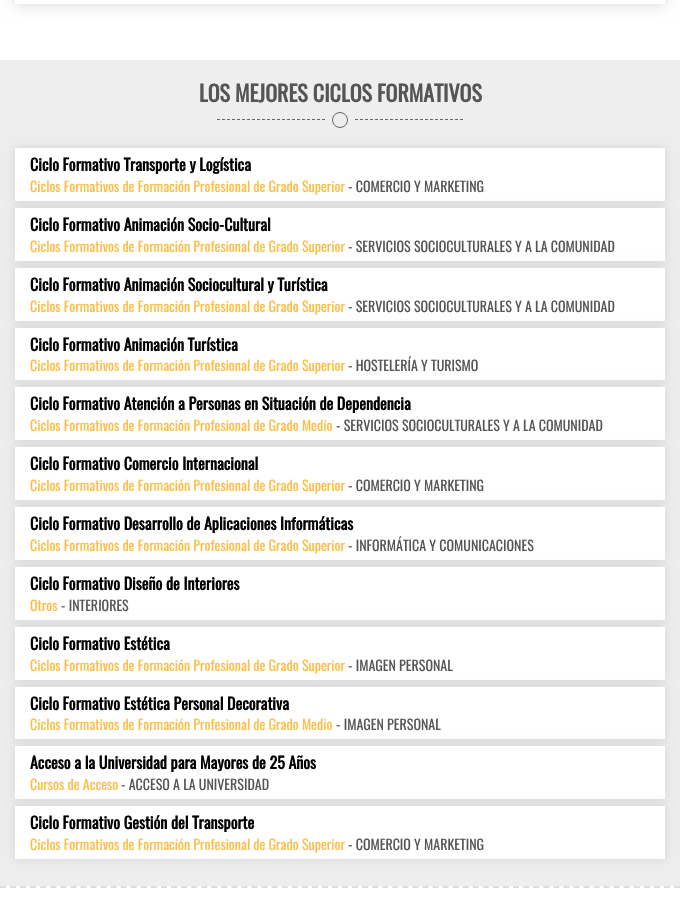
#include "include/core/SkBlurTypes.h"
#include "include/core/SkCanvas.h"
#include "include/core/SkData.h"
#include "include/core/SkFont.h"
#include "include/core/SkFontMgr.h"
#include "include/core/SkImage.h"
#include "include/core/SkMaskFilter.h"
#include "include/core/SkPaint.h"
#include "include/core/SkPathBuilder.h"
#include "include/core/SkTextBlob.h"
#include "include/effects/SkDashPathEffect.h"
#include "include/effects/SkGradientShader.h"
#include "include/utils/SkParsePath.h"

extern sk_sp<SkFontMgr> fontMgr;

void draw(SkCanvas* canvas) {
  SkPaint p;
  p.setAntiAlias(true);
  canvas->clear(SK_ColorWHITE);
  canvas->save();
  canvas->clipPath(SkPathBuilder(SkPathFillType::kEvenOdd).moveTo(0, 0).lineTo(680, 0).lineTo(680, 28).lineTo(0, 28).close().moveTo(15, -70).lineTo(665, -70).lineTo(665, 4).lineTo(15, 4).close().detach(), true);
  p.setColor(SkColorSetARGB(41, 0, 0, 0));
  p.setMaskFilter(SkMaskFilter::MakeBlur(kNormal_SkBlurStyle, 7.5f));
  canvas->drawRect(SkRect::MakeLTRB(15, -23, 665, 4), p);
  p.setMaskFilter(nullptr);
  canvas->restore();
  p.setColor(SkColorSetRGB(238, 238, 238));
  canvas->drawRect(SkRect::MakeLTRB(0, 60, 680, 886), p);
  p.setStyle(SkPaint::kStroke_Style);
  p.setStrokeWidth(1);
  p.setColor(SkColorSetRGB(102, 102, 102));
  p.setPathEffect(SkDashPathEffect::Make({{3, 2}}, 0));
  canvas->drawPath(SkPathBuilder().moveTo(217, 119.5f).lineTo(325, 119.5f).detach(), p);
  p.setPathEffect(nullptr);
  canvas->drawCircle(340, 120, 7.5f, p);
  p.setPathEffect(SkDashPathEffect::Make({{3, 2}}, 0));
  canvas->drawPath(SkPathBuilder().moveTo(355, 119.5f).lineTo(463, 119.5f).detach(), p);
  p.setPathEffect(nullptr);
  p.setStyle(SkPaint::kFill_Style);
  p.setColor(SkColorSetARGB(28, 0, 0, 0));
  p.setMaskFilter(SkMaskFilter::MakeBlur(kNormal_SkBlurStyle, 5));
  canvas->drawRect(SkRect::MakeLTRB(15, 148, 665, 201), p);
  p.setMaskFilter(nullptr);
  p.setColor(SK_ColorWHITE);
  canvas->drawRect(SkRect::MakeLTRB(15, 148, 665, 201), p);
  p.setColor(SkColorSetARGB(28, 0, 0, 0));
  p.setMaskFilter(SkMaskFilter::MakeBlur(kNormal_SkBlurStyle, 5));
  canvas->drawRect(SkRect::MakeLTRB(15, 208, 665, 261), p);
  p.setMaskFilter(nullptr);
  p.setColor(SK_ColorWHITE);
  canvas->drawRect(SkRect::MakeLTRB(15, 208, 665, 261), p);
  p.setColor(SkColorSetARGB(28, 0, 0, 0));
  p.setMaskFilter(SkMaskFilter::MakeBlur(kNormal_SkBlurStyle, 5));
  canvas->drawRect(SkRect::MakeLTRB(15, 268, 665, 321), p);
  p.setMaskFilter(nullptr);
  p.setColor(SK_ColorWHITE);
  canvas->drawRect(SkRect::MakeLTRB(15, 268, 665, 321), p);
  p.setColor(SkColorSetARGB(28, 0, 0, 0));
  p.setMaskFilter(SkMaskFilter::MakeBlur(kNormal_SkBlurStyle, 5));
  canvas->drawRect(SkRect::MakeLTRB(15, 328, 665, 380), p);
  p.setMaskFilter(nullptr);
  p.setColor(SK_ColorWHITE);
  canvas->drawRect(SkRect::MakeLTRB(15, 328, 665, 380), p);
  p.setColor(SkColorSetARGB(28, 0, 0, 0));
  p.setMaskFilter(SkMaskFilter::MakeBlur(kNormal_SkBlurStyle, 5));
  canvas->drawRect(SkRect::MakeLTRB(15, 387, 665, 440), p);
  p.setMaskFilter(nullptr);
  p.setColor(SK_ColorWHITE);
  canvas->drawRect(SkRect::MakeLTRB(15, 387, 665, 440), p);
  p.setColor(SkColorSetARGB(28, 0, 0, 0));
  p.setMaskFilter(SkMaskFilter::MakeBlur(kNormal_SkBlurStyle, 5));
  canvas->drawRect(SkRect::MakeLTRB(15, 447, 665, 500), p);
  p.setMaskFilter(nullptr);
  p.setColor(SK_ColorWHITE);
  canvas->drawRect(SkRect::MakeLTRB(15, 447, 665, 500), p);
  p.setColor(SkColorSetARGB(28, 0, 0, 0));
  p.setMaskFilter(SkMaskFilter::MakeBlur(kNormal_SkBlurStyle, 5));
  canvas->drawRect(SkRect::MakeLTRB(15, 507, 665, 560), p);
  p.setMaskFilter(nullptr);
  p.setColor(SK_ColorWHITE);
  canvas->drawRect(SkRect::MakeLTRB(15, 507, 665, 560), p);
  p.setColor(SkColorSetARGB(28, 0, 0, 0));
  p.setMaskFilter(SkMaskFilter::MakeBlur(kNormal_SkBlurStyle, 5));
  canvas->drawRect(SkRect::MakeLTRB(15, 567, 665, 620), p);
  p.setMaskFilter(nullptr);
  p.setColor(SK_ColorWHITE);
  canvas->drawRect(SkRect::MakeLTRB(15, 567, 665, 620), p);
  p.setColor(SkColorSetARGB(28, 0, 0, 0));
  p.setMaskFilter(SkMaskFilter::MakeBlur(kNormal_SkBlurStyle, 5));
  canvas->drawRect(SkRect::MakeLTRB(15, 627, 665, 680), p);
  p.setMaskFilter(nullptr);
  p.setColor(SK_ColorWHITE);
  canvas->drawRect(SkRect::MakeLTRB(15, 627, 665, 680), p);
  p.setColor(SkColorSetARGB(28, 0, 0, 0));
  p.setMaskFilter(SkMaskFilter::MakeBlur(kNormal_SkBlurStyle, 5));
  canvas->drawRect(SkRect::MakeLTRB(15, 687, 665, 739), p);
  p.setMaskFilter(nullptr);
  p.setColor(SK_ColorWHITE);
  canvas->drawRect(SkRect::MakeLTRB(15, 687, 665, 739), p);
  p.setColor(SkColorSetARGB(28, 0, 0, 0));
  p.setMaskFilter(SkMaskFilter::MakeBlur(kNormal_SkBlurStyle, 5));
  canvas->drawRect(SkRect::MakeLTRB(15, 746, 665, 799), p);
  p.setMaskFilter(nullptr);
  p.setColor(SK_ColorWHITE);
  canvas->drawRect(SkRect::MakeLTRB(15, 746, 665, 799), p);
  p.setColor(SkColorSetARGB(28, 0, 0, 0));
  p.setMaskFilter(SkMaskFilter::MakeBlur(kNormal_SkBlurStyle, 5));
  canvas->drawRect(SkRect::MakeLTRB(15, 806, 665, 859), p);
  p.setMaskFilter(nullptr);
  p.setColor(SK_ColorWHITE);
  canvas->drawRect(SkRect::MakeLTRB(15, 806, 665, 859), p);
  p.setStyle(SkPaint::kStroke_Style);
  p.setStrokeWidth(2);
  p.setColor(SkColorSetRGB(221, 221, 221));
  p.setPathEffect(SkDashPathEffect::Make({{6, 4.06f}}, 0));
  canvas->drawPath(SkPathBuilder().moveTo(0, 887).lineTo(680, 887).detach(), p);
  p.setPathEffect(nullptr);
  SkFont font1(fontMgr->matchFamilyStyle("Oswald", SkFontStyle::Bold()), 22);
  font1.setSubpixel(true);
  p.setStyle(SkPaint::kFill_Style);
  p.setColor(SkColorSetRGB(85, 85, 85));
  canvas->drawString("LOS MEJORES CICLOS FORMATIVOS", 199, 102, font1, p);
  SkFont font2(fontMgr->matchFamilyStyle("Oswald", SkFontStyle::Bold()), 16);
  font2.setSubpixel(true);
  p.setColor(SK_ColorBLACK);
  canvas->drawString("Ciclo Formativo Transporte y Logística", 30, 171, font2, p);
  SkFont font3(fontMgr->matchFamilyStyle("Oswald", SkFontStyle::Normal()), 14);
  font3.setSubpixel(true);
  p.setColor(SkColorSetRGB(253, 190, 67));
  canvas->drawString("Ciclos Formativos de Formación Profesional de Grado Superior", 30, 192, font3, p);
  p.setColor(SkColorSetRGB(85, 85, 85));
  canvas->drawString("- COMERCIO Y MARKETING", 348, 192, font3, p);
  p.setColor(SK_ColorBLACK);
  canvas->drawString("Ciclo Formativo Animación Socio-Cultural", 30, 231, font2, p);
  p.setColor(SkColorSetRGB(253, 190, 67));
  canvas->drawString("Ciclos Formativos de Formación Profesional de Grado Superior", 30, 252, font3, p);
  p.setColor(SkColorSetRGB(85, 85, 85));
  canvas->drawString("- SERVICIOS SOCIOCULTURALES Y A LA COMUNIDAD", 348, 252, font3, p);
  p.setColor(SK_ColorBLACK);
  canvas->drawString("Ciclo Formativo Animación Sociocultural y Turística", 30, 291, font2, p);
  p.setColor(SkColorSetRGB(253, 190, 67));
  canvas->drawString("Ciclos Formativos de Formación Profesional de Grado Superior", 30, 312, font3, p);
  p.setColor(SkColorSetRGB(85, 85, 85));
  canvas->drawString("- SERVICIOS SOCIOCULTURALES Y A LA COMUNIDAD", 348, 312, font3, p);
  p.setColor(SK_ColorBLACK);
  canvas->drawString("Ciclo Formativo Animación Turística", 30, 351, font2, p);
  p.setColor(SkColorSetRGB(253, 190, 67));
  canvas->drawString("Ciclos Formativos de Formación Profesional de Grado Superior", 30, 371, font3, p);
  p.setColor(SkColorSetRGB(85, 85, 85));
  canvas->drawString("- HOSTELERÍA Y TURISMO", 348, 371, font3, p);
  p.setColor(SK_ColorBLACK);
  canvas->drawString("Ciclo Formativo Atención a Personas en Situación de Dependencia", 30, 410, font2, p);
  p.setColor(SkColorSetRGB(253, 190, 67));
  canvas->drawString("Ciclos Formativos de Formación Profesional de Grado Medio", 30, 431, font3, p);
  p.setColor(SkColorSetRGB(85, 85, 85));
  canvas->drawString("- SERVICIOS SOCIOCULTURALES Y A LA COMUNIDAD", 336, 431, font3, p);
  p.setColor(SK_ColorBLACK);
  canvas->drawString("Ciclo Formativo Comercio Internacional", 30, 470, font2, p);
  p.setColor(SkColorSetRGB(253, 190, 67));
  canvas->drawString("Ciclos Formativos de Formación Profesional de Grado Superior", 30, 491, font3, p);
  p.setColor(SkColorSetRGB(85, 85, 85));
  canvas->drawString("- COMERCIO Y MARKETING", 348, 491, font3, p);
  p.setColor(SK_ColorBLACK);
  canvas->drawString("Ciclo Formativo Desarrollo de Aplicaciones Informáticas", 30, 530, font2, p);
  p.setColor(SkColorSetRGB(253, 190, 67));
  canvas->drawString("Ciclos Formativos de Formación Profesional de Grado Superior", 30, 551, font3, p);
  p.setColor(SkColorSetRGB(85, 85, 85));
  canvas->drawString("- INFORMÁTICA Y COMUNICACIONES", 348, 551, font3, p);
  p.setColor(SK_ColorBLACK);
  canvas->drawString("Ciclo Formativo Diseño de Interiores", 30, 590, font2, p);
  p.setColor(SkColorSetRGB(253, 190, 67));
  canvas->drawString("Otros", 30, 611, font3, p);
  p.setColor(SkColorSetRGB(85, 85, 85));
  canvas->drawString("- INTERIORES", 61, 611, font3, p);
  p.setColor(SK_ColorBLACK);
  canvas->drawString("Ciclo Formativo Estética", 30, 650, font2, p);
  p.setColor(SkColorSetRGB(253, 190, 67));
  canvas->drawString("Ciclos Formativos de Formación Profesional de Grado Superior", 30, 671, font3, p);
  p.setColor(SkColorSetRGB(85, 85, 85));
  canvas->drawString("- IMAGEN PERSONAL", 348, 671, font3, p);
  p.setColor(SK_ColorBLACK);
  canvas->drawString("Ciclo Formativo Estética Personal Decorativa", 30, 710, font2, p);
  p.setColor(SkColorSetRGB(253, 190, 67));
  canvas->drawString("Ciclos Formativos de Formación Profesional de Grado Medio", 30, 730, font3, p);
  p.setColor(SkColorSetRGB(85, 85, 85));
  canvas->drawString("- IMAGEN PERSONAL", 336, 730, font3, p);
  p.setColor(SK_ColorBLACK);
  canvas->drawString("Acceso a la Universidad para Mayores de 25 Años", 30, 769, font2, p);
  p.setColor(SkColorSetRGB(253, 190, 67));
  canvas->drawString("Cursos de Acceso", 30, 790, font3, p);
  p.setColor(SkColorSetRGB(85, 85, 85));
  canvas->drawString("- ACCESO A LA UNIVERSIDAD", 121, 790, font3, p);
  p.setColor(SK_ColorBLACK);
  canvas->drawString("Ciclo Formativo Gestión del Transporte", 30, 829, font2, p);
  p.setColor(SkColorSetRGB(253, 190, 67));
  canvas->drawString("Ciclos Formativos de Formación Profesional de Grado Superior", 30, 850, font3, p);
  p.setColor(SkColorSetRGB(85, 85, 85));
  canvas->drawString("- COMERCIO Y MARKETING", 348, 850, font3, p);
}
